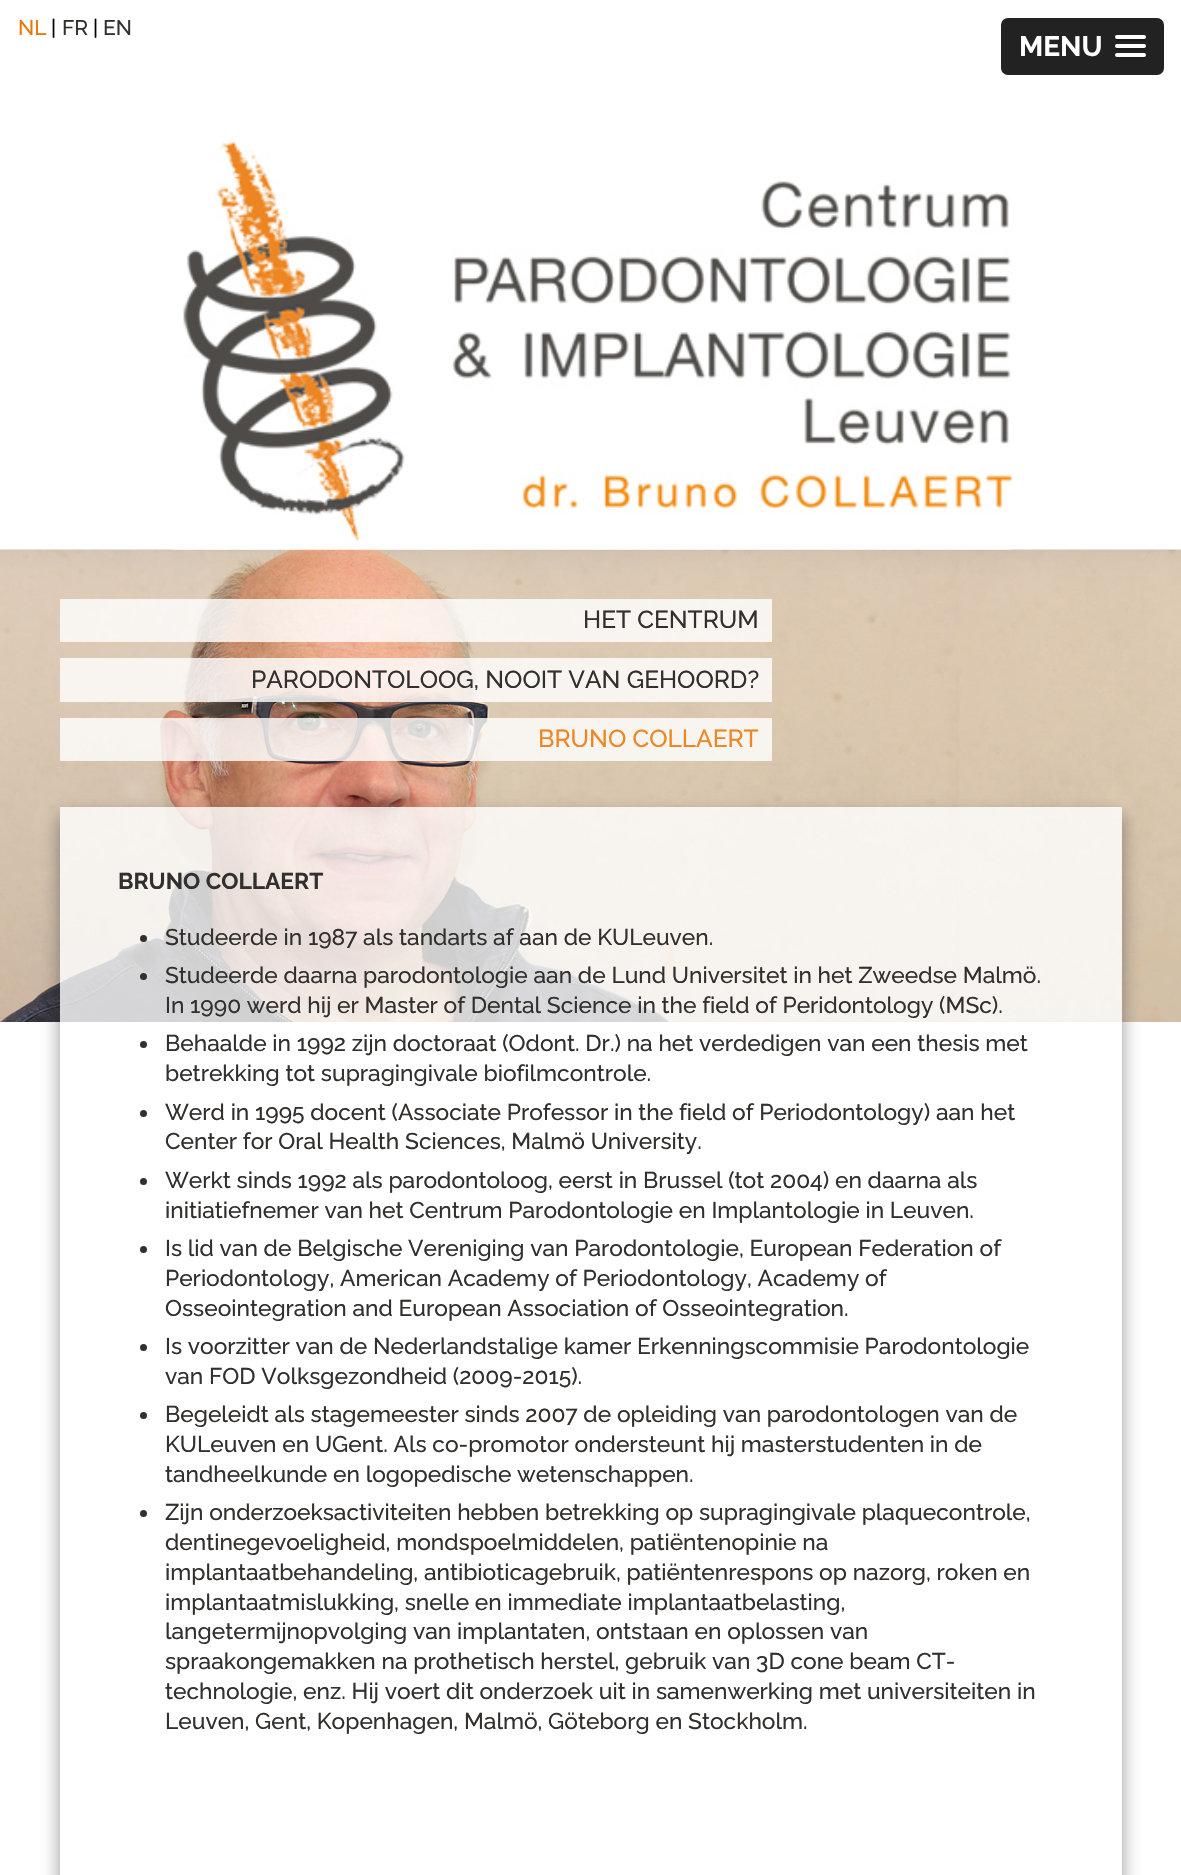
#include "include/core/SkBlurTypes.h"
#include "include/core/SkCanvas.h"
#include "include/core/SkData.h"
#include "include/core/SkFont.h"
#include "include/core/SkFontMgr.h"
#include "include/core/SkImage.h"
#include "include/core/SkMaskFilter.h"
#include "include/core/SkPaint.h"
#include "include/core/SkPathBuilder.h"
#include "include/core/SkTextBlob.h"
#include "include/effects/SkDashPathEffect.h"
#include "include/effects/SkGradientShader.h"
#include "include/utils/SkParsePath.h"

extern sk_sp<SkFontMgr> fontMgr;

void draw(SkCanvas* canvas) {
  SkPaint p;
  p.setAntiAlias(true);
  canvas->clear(SK_ColorWHITE);
  canvas->drawImageRect(SkImages::DeferredFromEncodedData(SkData::MakeFromFileName("images/2.png")), SkRect::MakeLTRB(0, 549, 1181, 1022), SkSamplingOptions());
  canvas->drawImageRect(SkImages::DeferredFromEncodedData(SkData::MakeFromFileName("images/1.png")), SkRect::MakeLTRB(171, 141, 1012, 550), SkSamplingOptions());
  p.setColor(SkColorSetRGB(34, 34, 34));
  canvas->drawRoundRect(SkRect::MakeLTRB(1001, 18, 1164, 75), 7, 7, p);
  p.setColor(SkColorSetRGB(26, 26, 26));
  canvas->drawPath(SkPathBuilder().moveTo(1115.5f, 38).cubicTo(1113, 42, 1121, 41, 1121.5f, 41).lineTo(1139.5f, 41).cubicTo(1140, 41, 1148, 42, 1145.5f, 38).lineTo(1144.5f, 38.5f).lineTo(1116.5f, 38.5f).close().detach(), p);
  p.setColor(SK_ColorWHITE);
  canvas->drawRoundRect(SkRect::MakeLTRB(1115, 35, 1146, 39), 2, 2, p);
  p.setColor(SkColorSetRGB(26, 26, 26));
  canvas->drawPath(SkPathBuilder().moveTo(1115.5f, 47).lineTo(1115, 48.5f).cubicTo(1115.5f, 51, 1120.5f, 50, 1121.5f, 50).lineTo(1139.5f, 50).cubicTo(1140.5f, 50, 1145.5f, 51, 1146, 48.5f).lineTo(1145.5f, 47).cubicTo(1144.5f, 47.5f, 1116.5f, 47.5f, 1115.5f, 47).close().detach(), p);
  p.setColor(SK_ColorWHITE);
  canvas->drawRoundRect(SkRect::MakeLTRB(1115, 44, 1146, 48), 2, 2, p);
  p.setColor(SkColorSetRGB(26, 26, 26));
  canvas->drawPath(SkPathBuilder().moveTo(1115, 55.5f).cubicTo(1114, 59, 1120.5f, 58, 1121.5f, 58).lineTo(1139.5f, 58).cubicTo(1140.5f, 58, 1147, 59, 1146, 55.5f).lineTo(1144.5f, 56).lineTo(1116.5f, 56).close().detach(), p);
  p.setColor(SK_ColorWHITE);
  canvas->drawRoundRect(SkRect::MakeLTRB(1115, 53, 1146, 57), 2, 2, p);
  p.setColor(SkColorSetARGB(204, 255, 255, 255));
  canvas->drawRect(SkRect::MakeLTRB(60, 599, 772, 642), p);
  canvas->drawRect(SkRect::MakeLTRB(60, 658, 772, 702), p);
  canvas->drawRect(SkRect::MakeLTRB(60, 718, 772, 761), p);
  canvas->save();
  canvas->clipPath(SkPathBuilder(SkPathFillType::kEvenOdd).moveTo(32, 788).lineTo(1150, 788).lineTo(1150, 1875).lineTo(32, 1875).close().moveTo(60, 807).lineTo(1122, 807).lineTo(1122, 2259).lineTo(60, 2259).close().detach(), true);
  p.setColor(SkColorSetARGB(128, 50, 50, 50));
  p.setMaskFilter(SkMaskFilter::MakeBlur(kNormal_SkBlurStyle, 9));
  canvas->drawRect(SkRect::MakeLTRB(60, 816, 1122, 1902), p);
  p.setMaskFilter(nullptr);
  canvas->restore();
  p.setColor(SkColorSetARGB(204, 255, 255, 255));
  canvas->drawRect(SkRect::MakeLTRB(60, 807, 1122, 1875), p);
  p.setColor(SkColorSetRGB(50, 48, 46));
  canvas->drawCircle(143.5f, 938.5f, 3.5f, p);
  canvas->drawCircle(143.5f, 976.5f, 3.5f, p);
  canvas->drawCircle(143.5f, 1044.5f, 3.5f, p);
  canvas->drawCircle(143.5f, 1113.5f, 3.5f, p);
  canvas->drawCircle(143.5f, 1181.5f, 3.5f, p);
  canvas->drawCircle(143.5f, 1249.5f, 3.5f, p);
  canvas->drawCircle(143.5f, 1347.5f, 3.5f, p);
  canvas->drawCircle(143.5f, 1415.5f, 3.5f, p);
  canvas->drawCircle(143.5f, 1513.5f, 3.5f, p);
  SkFont font1(fontMgr->matchFamilyStyle("Raleway", SkFontStyle(500, SkFontStyle::kNormal_Width, SkFontStyle::kUpright_Slant)), 21);
  font1.setSubpixel(true);
  p.setColor(SkColorSetRGB(234, 118, 7));
  canvas->drawString("NL", 18, 35, font1, p);
  p.setColor(SK_ColorBLACK);
  canvas->drawString("|", 51, 35, font1, p);
  p.setColor(SkColorSetRGB(50, 48, 46));
  canvas->drawString("FR", 62, 35, font1, p);
  p.setColor(SK_ColorBLACK);
  canvas->drawString("|", 93, 35, font1, p);
  p.setColor(SkColorSetRGB(50, 48, 46));
  canvas->drawString("EN", 103, 35, font1, p);
  SkFont font2(fontMgr->matchFamilyStyle("Raleway", SkFontStyle::Bold()), 28);
  font2.setSubpixel(true);
  p.setColor(SK_ColorWHITE);
  canvas->drawString("MENU", 1019, 56, font2, p);
  SkFont font3(fontMgr->matchFamilyStyle("Raleway", SkFontStyle(500, SkFontStyle::kNormal_Width, SkFontStyle::kUpright_Slant)), 24.5f);
  font3.setSubpixel(true);
  p.setColor(SkColorSetRGB(50, 48, 46));
  canvas->drawString("HET CENTRUM", 583, 628, font3, p);
  canvas->drawString("PARODONTOLOOG, NOOIT VAN GEHOORD?", 251, 688, font3, p);
  p.setColor(SkColorSetRGB(237, 134, 35));
  canvas->drawString("BRUNO COLLAERT", 538, 747, font3, p);
  SkFont font4(fontMgr->matchFamilyStyle("Raleway", SkFontStyle::Bold()), 22.75f);
  font4.setSubpixel(true);
  p.setColor(SkColorSetRGB(50, 48, 46));
  canvas->drawString("BRUNO COLLAERT", 118, 889, font4, p);
  SkFont font5(fontMgr->matchFamilyStyle("Raleway", SkFontStyle(500, SkFontStyle::kNormal_Width, SkFontStyle::kUpright_Slant)), 22.75f);
  font5.setSubpixel(true);
  canvas->drawString("Studeerde in 1987 als tandarts af aan de KULeuven.", 165, 945, font5, p);
  canvas->drawString("Studeerde daarna parodontologie aan de Lund Universitet in het Zweedse Malmö.", 165, 983, font5, p);
  canvas->drawString("In 1990 werd hij er Master of Dental Science in the field of Peridontology (MSc).", 165, 1013, font5, p);
  canvas->drawString("Behaalde in 1992 zijn doctoraat (Odont. Dr.) na het verdedigen van een thesis met", 165, 1051, font5, p);
  canvas->drawString("betrekking tot supragingivale biofilmcontrole.", 165, 1081, font5, p);
  canvas->drawString("Werd in 1995 docent (Associate Professor in the field of Periodontology) aan het", 165, 1120, font5, p);
  canvas->drawString("Center for Oral Health Sciences, Malmö University.", 165, 1149, font5, p);
  canvas->drawString("Werkt sinds 1992 als parodontoloog, eerst in Brussel (tot 2004) en daarna als", 165, 1188, font5, p);
  canvas->drawString("initiatiefnemer van het Centrum Parodontologie en Implantologie in Leuven.", 165, 1218, font5, p);
  canvas->drawString("Is lid van de Belgische Vereniging van Parodontologie, European Federation of", 165, 1256, font5, p);
  canvas->drawString("Periodontology, American Academy of Periodontology, Academy of", 165, 1286, font5, p);
  canvas->drawString("Osseointegration and European Association of Osseointegration.", 165, 1316, font5, p);
  canvas->drawString("Is voorzitter van de Nederlandstalige kamer Erkenningscommisie Parodontologie", 165, 1354, font5, p);
  canvas->drawString("van FOD Volksgezondheid (2009-2015).", 165, 1384, font5, p);
  canvas->drawString("Begeleidt als stagemeester sinds 2007 de opleiding van parodontologen van de", 165, 1422, font5, p);
  canvas->drawString("KULeuven en UGent. Als co-promotor ondersteunt hij masterstudenten in de", 165, 1452, font5, p);
  canvas->drawString("tandheelkunde en logopedische wetenschappen.", 165, 1482, font5, p);
  canvas->drawString("Zijn onderzoeksactiviteiten hebben betrekking op supragingivale plaquecontrole,", 165, 1520, font5, p);
  canvas->drawString("dentinegevoeligheid, mondspoelmiddelen, patiëntenopinie na", 165, 1550, font5, p);
  canvas->drawString("implantaatbehandeling, antibioticagebruik, patiëntenrespons op nazorg, roken en", 165, 1580, font5, p);
  canvas->drawString("implantaatmislukking, snelle en immediate implantaatbelasting,", 165, 1610, font5, p);
  canvas->drawString("langetermijnopvolging van implantaten, ontstaan en oplossen van", 165, 1639, font5, p);
  canvas->drawString("spraakongemakken na prothetisch herstel, gebruik van 3D cone beam CT-", 165, 1669, font5, p);
  canvas->drawString("technologie, enz. Hij voert dit onderzoek uit in samenwerking met universiteiten in", 165, 1699, font5, p);
  canvas->drawString("Leuven, Gent, Kopenhagen, Malmö, Göteborg en Stockholm.", 165, 1729, font5, p);
}
